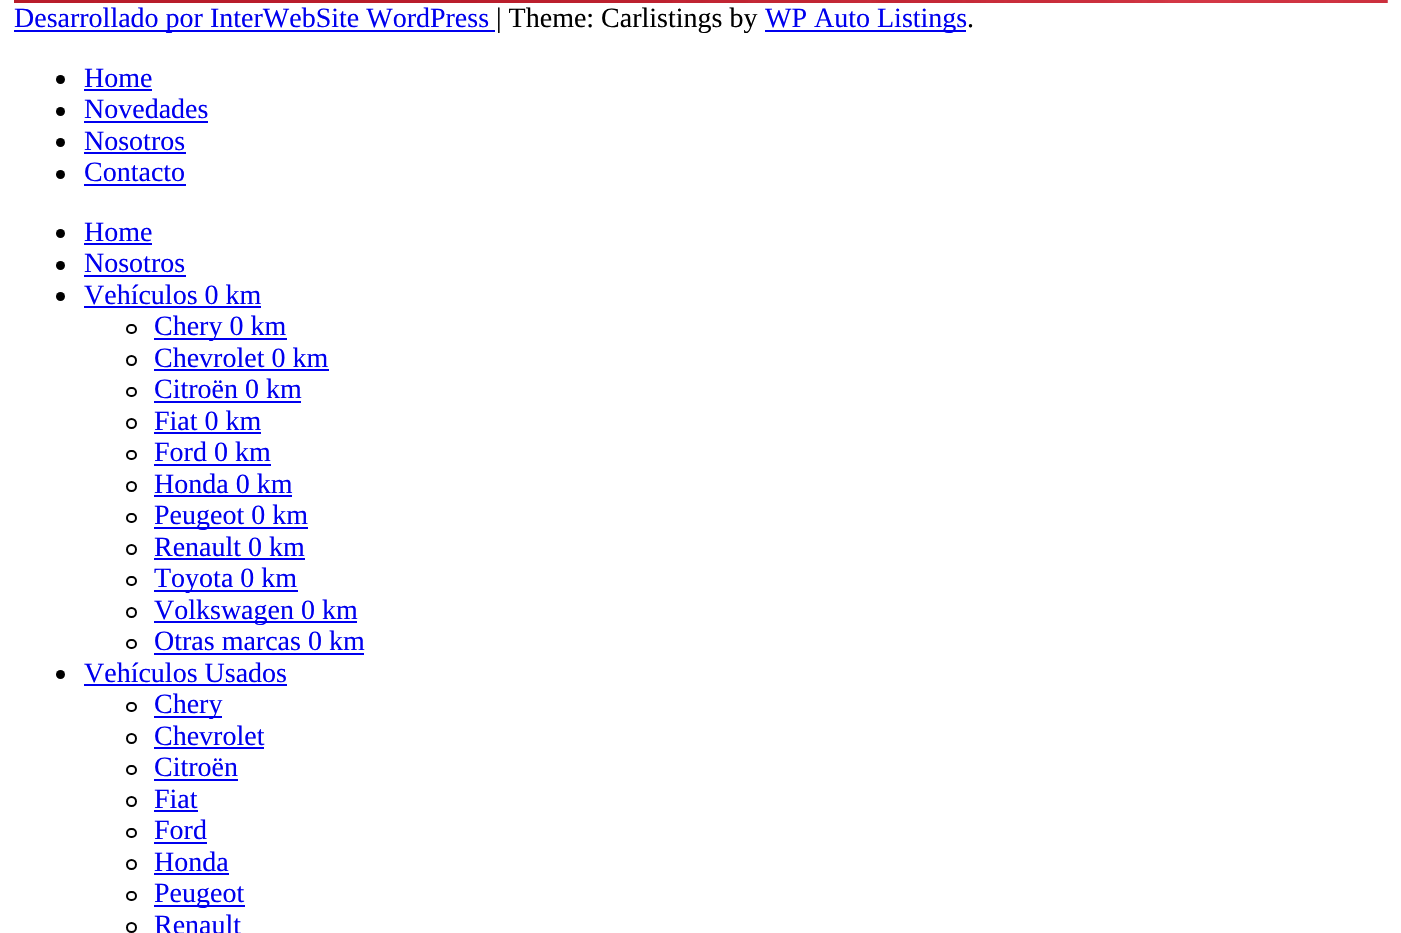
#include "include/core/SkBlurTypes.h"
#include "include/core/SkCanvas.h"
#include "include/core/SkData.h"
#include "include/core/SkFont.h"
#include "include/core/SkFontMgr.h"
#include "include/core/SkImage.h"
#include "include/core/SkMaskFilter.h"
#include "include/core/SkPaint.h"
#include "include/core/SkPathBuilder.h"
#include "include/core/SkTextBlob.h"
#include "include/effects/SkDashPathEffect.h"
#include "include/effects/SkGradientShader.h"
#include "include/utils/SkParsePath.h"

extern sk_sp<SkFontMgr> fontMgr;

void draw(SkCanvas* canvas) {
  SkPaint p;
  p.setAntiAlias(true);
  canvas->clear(SK_ColorWHITE);
  canvas->drawImageRect(SkImages::DeferredFromEncodedData(SkData::MakeFromFileName("images/1.png")), SkRect::MakeLTRB(14, 0, 1388, 3), SkSamplingOptions());
  p.setColor(SkColorSetRGB(0, 0, 238));
  canvas->drawRect(SkRect::MakeLTRB(14, 30, 495, 32), p);
  canvas->drawRect(SkRect::MakeLTRB(765, 30, 966, 32), p);
  p.setColor(SK_ColorBLACK);
  canvas->drawCircle(60.5f, 79.5f, 4.5f, p);
  p.setColor(SkColorSetRGB(0, 0, 238));
  canvas->drawRect(SkRect::MakeLTRB(84, 89, 152, 91), p);
  p.setColor(SK_ColorBLACK);
  canvas->drawCircle(60.5f, 111.5f, 4.5f, p);
  p.setColor(SkColorSetRGB(0, 0, 238));
  canvas->drawRect(SkRect::MakeLTRB(84, 121, 208, 123), p);
  p.setColor(SK_ColorBLACK);
  canvas->drawCircle(60.5f, 142.5f, 4.5f, p);
  p.setColor(SkColorSetRGB(0, 0, 238));
  canvas->drawRect(SkRect::MakeLTRB(84, 152, 186, 154), p);
  p.setColor(SK_ColorBLACK);
  canvas->drawCircle(60.5f, 174.5f, 4.5f, p);
  p.setColor(SkColorSetRGB(0, 0, 238));
  canvas->drawRect(SkRect::MakeLTRB(84, 184, 186, 186), p);
  p.setColor(SK_ColorBLACK);
  canvas->drawCircle(60.5f, 233.5f, 4.5f, p);
  p.setColor(SkColorSetRGB(0, 0, 238));
  canvas->drawRect(SkRect::MakeLTRB(84, 243, 152, 245), p);
  p.setColor(SK_ColorBLACK);
  canvas->drawCircle(60.5f, 265.5f, 4.5f, p);
  p.setColor(SkColorSetRGB(0, 0, 238));
  canvas->drawRect(SkRect::MakeLTRB(84, 275, 186, 277), p);
  p.setColor(SK_ColorBLACK);
  canvas->drawCircle(60.5f, 296.5f, 4.5f, p);
  p.setColor(SkColorSetRGB(0, 0, 238));
  canvas->drawRect(SkRect::MakeLTRB(84, 306, 261, 308), p);
  p.setStyle(SkPaint::kStroke_Style);
  p.setStrokeWidth(2);
  p.setColor(SK_ColorBLACK);
  canvas->drawRoundRect(SkRect::MakeLTRB(127, 325, 136, 333), 4, 4, p);
  p.setStyle(SkPaint::kFill_Style);
  p.setColor(SkColorSetRGB(0, 0, 238));
  canvas->drawRect(SkRect::MakeLTRB(154, 338, 287, 340), p);
  p.setStyle(SkPaint::kStroke_Style);
  p.setColor(SK_ColorBLACK);
  canvas->drawCircle(131.5f, 360.5f, 4.5f, p);
  p.setStyle(SkPaint::kFill_Style);
  p.setColor(SkColorSetRGB(0, 0, 238));
  canvas->drawRect(SkRect::MakeLTRB(154, 369, 329, 371), p);
  p.setStyle(SkPaint::kStroke_Style);
  p.setColor(SK_ColorBLACK);
  canvas->drawRoundRect(SkRect::MakeLTRB(127, 388, 136, 396), 4, 4, p);
  p.setStyle(SkPaint::kFill_Style);
  p.setColor(SkColorSetRGB(0, 0, 238));
  canvas->drawRect(SkRect::MakeLTRB(154, 401, 301, 403), p);
  p.setStyle(SkPaint::kStroke_Style);
  p.setColor(SK_ColorBLACK);
  canvas->drawCircle(131.5f, 423.5f, 4.5f, p);
  p.setStyle(SkPaint::kFill_Style);
  p.setColor(SkColorSetRGB(0, 0, 238));
  canvas->drawRect(SkRect::MakeLTRB(154, 432, 261, 434), p);
  p.setStyle(SkPaint::kStroke_Style);
  p.setColor(SK_ColorBLACK);
  canvas->drawRoundRect(SkRect::MakeLTRB(127, 451, 136, 459), 4, 4, p);
  p.setStyle(SkPaint::kFill_Style);
  p.setColor(SkColorSetRGB(0, 0, 238));
  canvas->drawRect(SkRect::MakeLTRB(154, 464, 271, 466), p);
  p.setStyle(SkPaint::kStroke_Style);
  p.setColor(SK_ColorBLACK);
  canvas->drawCircle(131.5f, 486.5f, 4.5f, p);
  p.setStyle(SkPaint::kFill_Style);
  p.setColor(SkColorSetRGB(0, 0, 238));
  canvas->drawRect(SkRect::MakeLTRB(154, 495, 292, 497), p);
  p.setStyle(SkPaint::kStroke_Style);
  p.setColor(SK_ColorBLACK);
  canvas->drawRoundRect(SkRect::MakeLTRB(127, 514, 136, 522), 4, 4, p);
  p.setStyle(SkPaint::kFill_Style);
  p.setColor(SkColorSetRGB(0, 0, 238));
  canvas->drawRect(SkRect::MakeLTRB(154, 527, 308, 529), p);
  p.setStyle(SkPaint::kStroke_Style);
  p.setColor(SK_ColorBLACK);
  canvas->drawCircle(131.5f, 549.5f, 4.5f, p);
  p.setStyle(SkPaint::kFill_Style);
  p.setColor(SkColorSetRGB(0, 0, 238));
  canvas->drawRect(SkRect::MakeLTRB(154, 558, 305, 560), p);
  p.setStyle(SkPaint::kStroke_Style);
  p.setColor(SK_ColorBLACK);
  canvas->drawRoundRect(SkRect::MakeLTRB(127, 577, 136, 585), 4, 4, p);
  p.setStyle(SkPaint::kFill_Style);
  p.setColor(SkColorSetRGB(0, 0, 238));
  canvas->drawRect(SkRect::MakeLTRB(154, 590, 298, 592), p);
  p.setStyle(SkPaint::kStroke_Style);
  p.setColor(SK_ColorBLACK);
  canvas->drawCircle(131.5f, 612.5f, 4.5f, p);
  p.setStyle(SkPaint::kFill_Style);
  p.setColor(SkColorSetRGB(0, 0, 238));
  canvas->drawRect(SkRect::MakeLTRB(154, 621, 357, 623), p);
  p.setStyle(SkPaint::kStroke_Style);
  p.setColor(SK_ColorBLACK);
  canvas->drawRoundRect(SkRect::MakeLTRB(127, 640, 136, 648), 4, 4, p);
  p.setStyle(SkPaint::kFill_Style);
  p.setColor(SkColorSetRGB(0, 0, 238));
  canvas->drawRect(SkRect::MakeLTRB(154, 653, 364, 655), p);
  p.setColor(SK_ColorBLACK);
  canvas->drawCircle(60.5f, 674.5f, 4.5f, p);
  p.setColor(SkColorSetRGB(0, 0, 238));
  canvas->drawRect(SkRect::MakeLTRB(84, 684, 287, 686), p);
  p.setStyle(SkPaint::kStroke_Style);
  p.setColor(SK_ColorBLACK);
  canvas->drawRoundRect(SkRect::MakeLTRB(127, 703, 136, 711), 4, 4, p);
  p.setStyle(SkPaint::kFill_Style);
  p.setColor(SkColorSetRGB(0, 0, 238));
  canvas->drawRect(SkRect::MakeLTRB(154, 716, 222, 718), p);
  p.setStyle(SkPaint::kStroke_Style);
  p.setColor(SK_ColorBLACK);
  canvas->drawCircle(131.5f, 738.5f, 4.5f, p);
  p.setStyle(SkPaint::kFill_Style);
  p.setColor(SkColorSetRGB(0, 0, 238));
  canvas->drawRect(SkRect::MakeLTRB(154, 747, 264, 749), p);
  p.setStyle(SkPaint::kStroke_Style);
  p.setColor(SK_ColorBLACK);
  canvas->drawRoundRect(SkRect::MakeLTRB(127, 766, 136, 774), 4, 4, p);
  p.setStyle(SkPaint::kFill_Style);
  p.setColor(SkColorSetRGB(0, 0, 238));
  canvas->drawRect(SkRect::MakeLTRB(154, 779, 238, 781), p);
  p.setStyle(SkPaint::kStroke_Style);
  p.setColor(SK_ColorBLACK);
  canvas->drawCircle(131.5f, 801.5f, 4.5f, p);
  p.setStyle(SkPaint::kFill_Style);
  p.setColor(SkColorSetRGB(0, 0, 238));
  canvas->drawRect(SkRect::MakeLTRB(154, 810, 198, 812), p);
  p.setStyle(SkPaint::kStroke_Style);
  p.setColor(SK_ColorBLACK);
  canvas->drawRoundRect(SkRect::MakeLTRB(127, 829, 136, 837), 4, 4, p);
  p.setStyle(SkPaint::kFill_Style);
  p.setColor(SkColorSetRGB(0, 0, 238));
  canvas->drawRect(SkRect::MakeLTRB(154, 842, 207, 844), p);
  p.setStyle(SkPaint::kStroke_Style);
  p.setColor(SK_ColorBLACK);
  canvas->drawCircle(131.5f, 864.5f, 4.5f, p);
  p.setStyle(SkPaint::kFill_Style);
  p.setColor(SkColorSetRGB(0, 0, 238));
  canvas->drawRect(SkRect::MakeLTRB(154, 873, 229, 875), p);
  p.setStyle(SkPaint::kStroke_Style);
  p.setColor(SK_ColorBLACK);
  canvas->drawRoundRect(SkRect::MakeLTRB(127, 892, 136, 900), 4, 4, p);
  p.setStyle(SkPaint::kFill_Style);
  p.setColor(SkColorSetRGB(0, 0, 238));
  canvas->drawRect(SkRect::MakeLTRB(154, 905, 245, 907), p);
  p.setStyle(SkPaint::kStroke_Style);
  p.setColor(SK_ColorBLACK);
  canvas->drawCircle(131.5f, 927.5f, 4.5f, p);
  SkFont font1(fontMgr->matchFamilyStyle("Liberation Serif", SkFontStyle::Normal()), 28);
  font1.setSubpixel(true);
  p.setStyle(SkPaint::kFill_Style);
  p.setColor(SkColorSetRGB(0, 0, 238));
  canvas->drawString("Desarrollado por InterWebSite WordPress", 14, 27, font1, p);
  p.setColor(SK_ColorBLACK);
  canvas->drawString("| Theme: Carlistings by", 496, 27, font1, p);
  p.setColor(SkColorSetRGB(0, 0, 238));
  canvas->drawString("WP Auto Listings", 765, 27, font1, p);
  p.setColor(SK_ColorBLACK);
  canvas->drawString(".", 967, 27, font1, p);
  p.setColor(SkColorSetRGB(0, 0, 238));
  canvas->drawString("Home", 84, 87, font1, p);
  canvas->drawString("Novedades", 84, 118, font1, p);
  canvas->drawString("Nosotros", 84, 150, font1, p);
  canvas->drawString("Contacto", 84, 181, font1, p);
  canvas->drawString("Home", 84, 241, font1, p);
  canvas->drawString("Nosotros", 84, 272, font1, p);
  canvas->drawString("Vehículos 0 km", 84, 304, font1, p);
  canvas->drawString("Chery 0 km", 154, 335, font1, p);
  canvas->drawString("Chevrolet 0 km", 154, 367, font1, p);
  canvas->drawString("Citroën 0 km", 154, 398, font1, p);
  canvas->drawString("Fiat 0 km", 154, 430, font1, p);
  canvas->drawString("Ford 0 km", 154, 461, font1, p);
  canvas->drawString("Honda 0 km", 154, 493, font1, p);
  canvas->drawString("Peugeot 0 km", 154, 524, font1, p);
  canvas->drawString("Renault 0 km", 154, 556, font1, p);
  canvas->drawString("Toyota 0 km", 154, 587, font1, p);
  canvas->drawString("Volkswagen 0 km", 154, 619, font1, p);
  canvas->drawString("Otras marcas 0 km", 154, 650, font1, p);
  canvas->drawString("Vehículos Usados", 84, 682, font1, p);
  canvas->drawString("Chery", 154, 713, font1, p);
  canvas->drawString("Chevrolet", 154, 745, font1, p);
  canvas->drawString("Citroën", 154, 776, font1, p);
  canvas->drawString("Fiat", 154, 808, font1, p);
  canvas->drawString("Ford", 154, 839, font1, p);
  canvas->drawString("Honda", 154, 871, font1, p);
  canvas->drawString("Peugeot", 154, 902, font1, p);
  canvas->drawString("Renault", 154, 934, font1, p);
}
